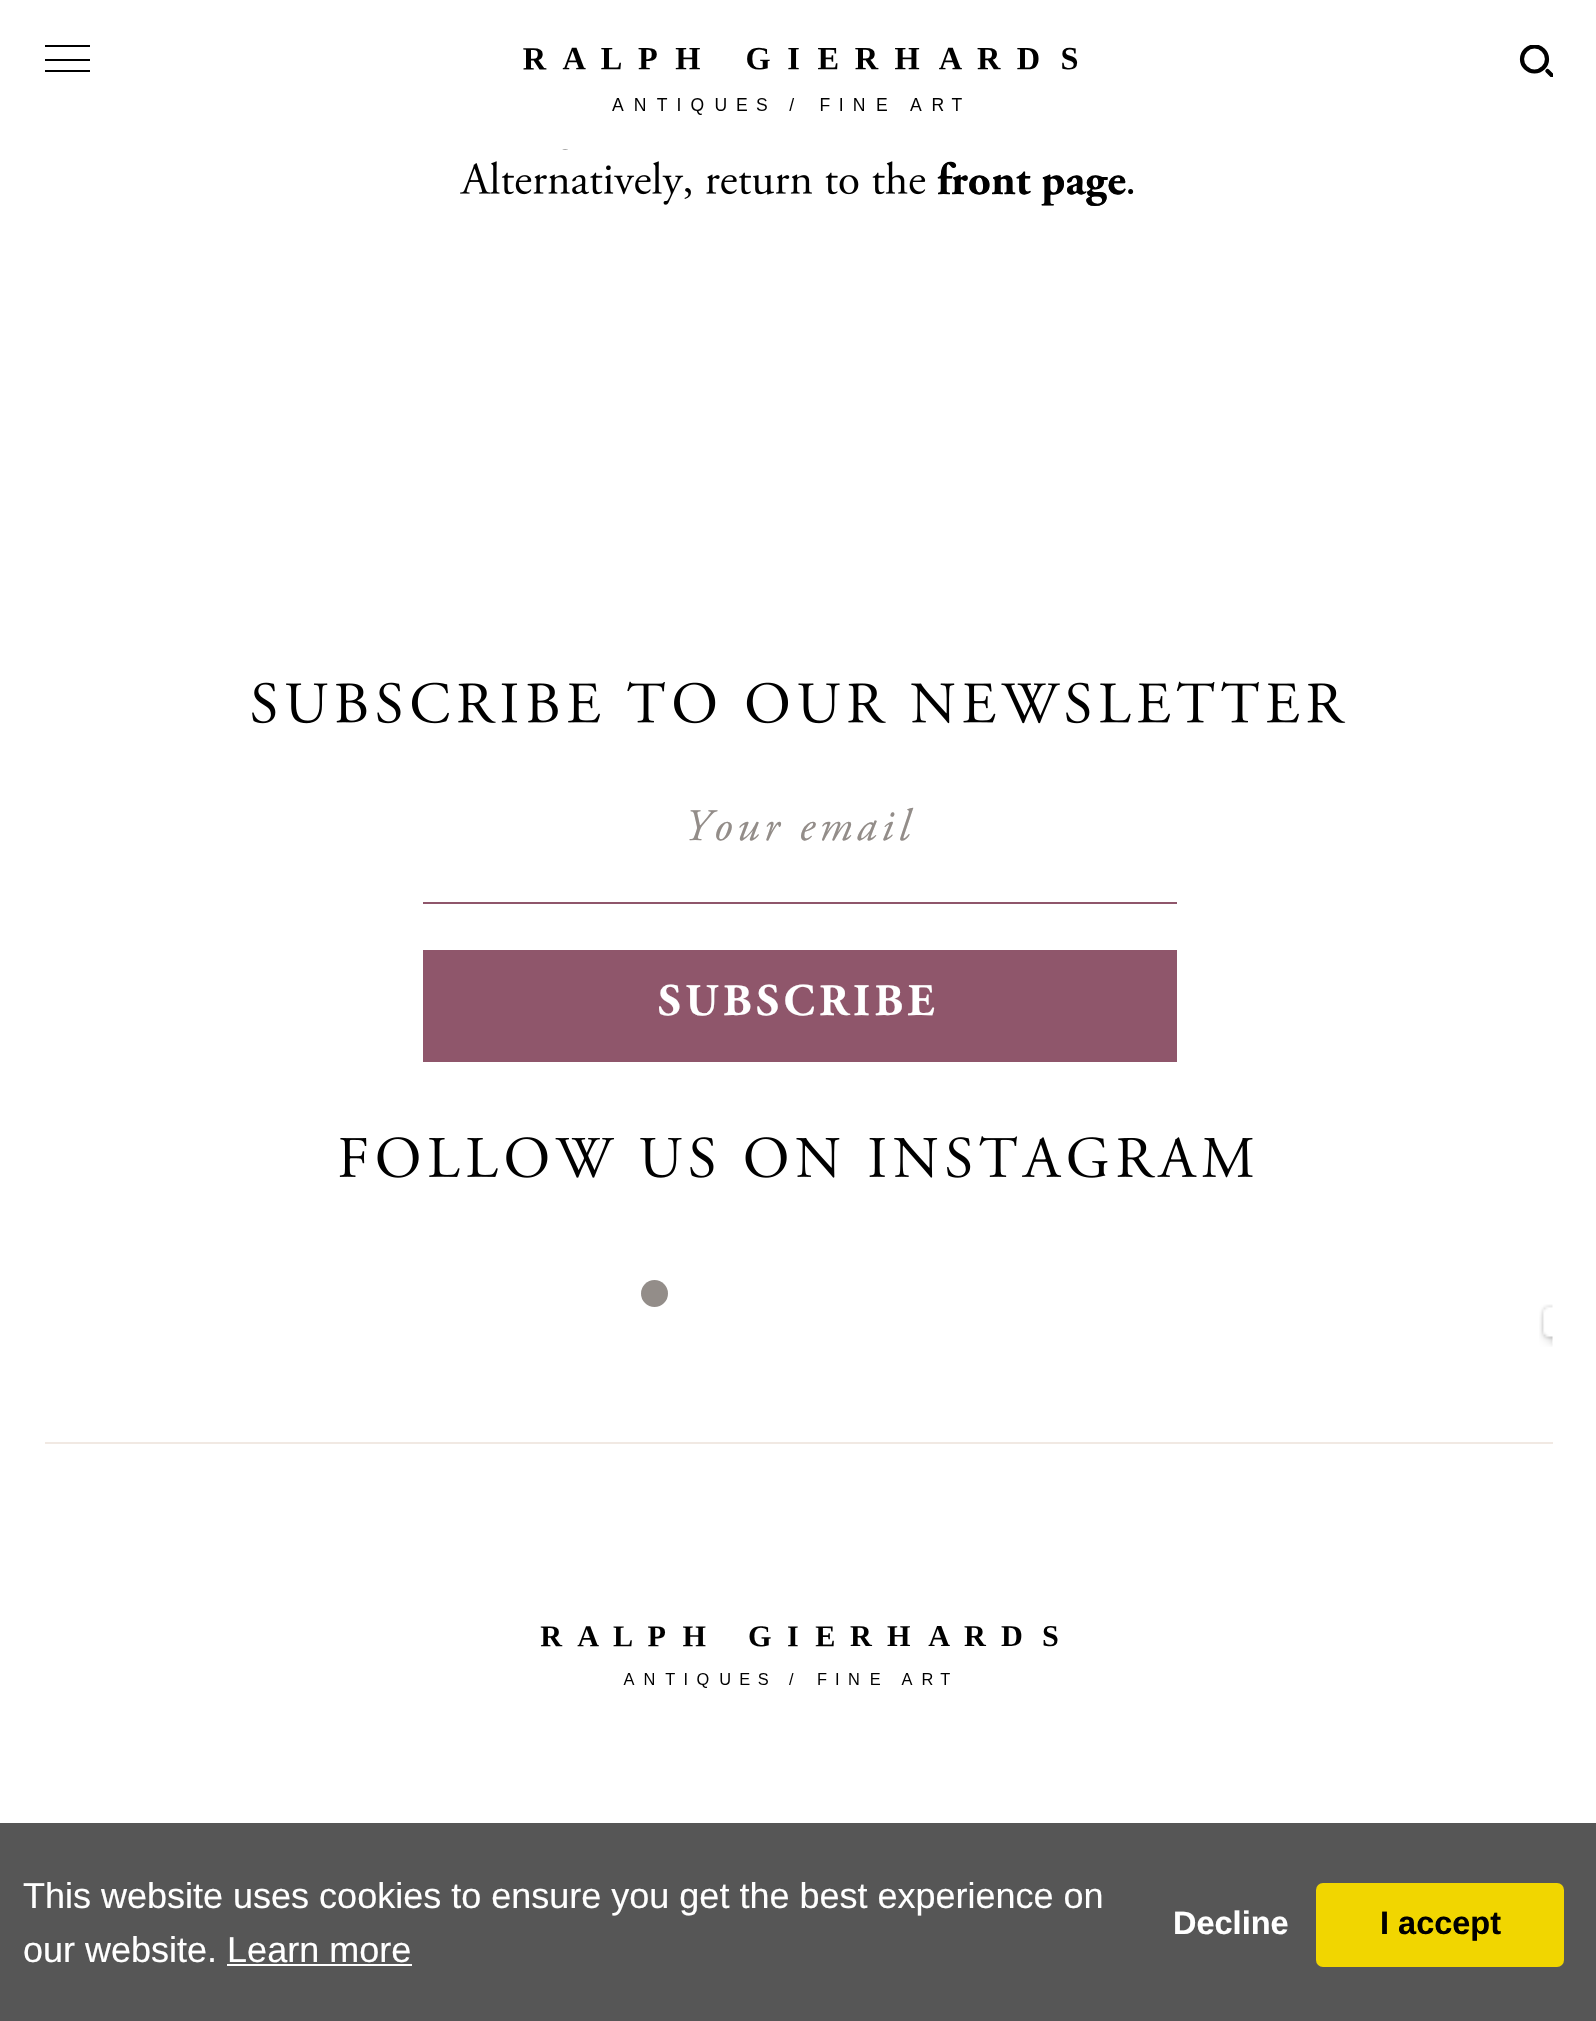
#include "include/core/SkBlurTypes.h"
#include "include/core/SkCanvas.h"
#include "include/core/SkData.h"
#include "include/core/SkFont.h"
#include "include/core/SkFontMgr.h"
#include "include/core/SkImage.h"
#include "include/core/SkMaskFilter.h"
#include "include/core/SkPaint.h"
#include "include/core/SkPathBuilder.h"
#include "include/core/SkTextBlob.h"
#include "include/effects/SkDashPathEffect.h"
#include "include/effects/SkGradientShader.h"
#include "include/utils/SkParsePath.h"

extern sk_sp<SkFontMgr> fontMgr;

void draw(SkCanvas* canvas) {
  SkPaint p;
  p.setAntiAlias(true);
  auto spacedText = [&](const char* s, float x, float y, const SkFont& font, const SkPaint& ink, float letter, float word) {
    std::vector<SkGlyphID> glyphs(font.countText(s, strlen(s), SkTextEncoding::kUTF8));
    std::vector<float> xs(glyphs.size());
    font.textToGlyphs(s, strlen(s), SkTextEncoding::kUTF8, glyphs);
    font.getXPos(glyphs, xs, x);
    float extra = 0;
    for (size_t i = 0; i < glyphs.size(); i++) {
      xs[i] += extra;
      extra += letter + word * (glyphs[i] == font.unicharToGlyph(' '));
    }
    canvas->drawTextBlob(SkTextBlob::MakeFromPosHGlyphs(glyphs, xs, y, font), 0, 0, ink);
  };
  canvas->clear(SK_ColorWHITE);
  p.setColor(SkColorSetRGB(86, 86, 86));
  canvas->drawRect(SkRect::MakeLTRB(0, 1823, 1596, 2021), p);
  p.setColor(SK_ColorBLACK);
  canvas->drawRect(SkRect::MakeLTRB(45, 45, 90, 47), p);
  canvas->drawRect(SkRect::MakeLTRB(45, 59, 90, 61), p);
  canvas->drawRect(SkRect::MakeLTRB(45, 70, 90, 72), p);
  canvas->save();
  canvas->clipRect(SkRect::MakeLTRB(1519, 45, 1553, 77));
  p.setStyle(SkPaint::kStroke_Style);
  p.setStrokeWidth(4.2f);
  canvas->drawCircle(1534.5f, 59, 12.5f, p);
  p.setStrokeCap(SkPaint::kRound_Cap);
  canvas->drawPath(SkPathBuilder().moveTo(1553.5f, 77).lineTo(1547.5f, 71).detach(), p);
  canvas->restore();
  canvas->drawImageRect(SkImages::DeferredFromEncodedData(SkData::MakeFromFileName("images/1.png")), SkRect::MakeLTRB(523, 47, 1078, 115), SkSamplingOptions());
  canvas->drawImageRect(SkImages::DeferredFromEncodedData(SkData::MakeFromFileName("images/2.png")), SkRect::MakeLTRB(562, 149, 568, 150), SkSamplingOptions());
  canvas->drawImageRect(SkImages::DeferredFromEncodedData(SkData::MakeFromFileName("images/3.png")), SkRect::MakeLTRB(460, 161, 926, 205), SkSamplingOptions());
  canvas->drawImageRect(SkImages::DeferredFromEncodedData(SkData::MakeFromFileName("images/4.png")), SkRect::MakeLTRB(1128, 189, 1134, 195), SkSamplingOptions());
  canvas->drawImageRect(SkImages::DeferredFromEncodedData(SkData::MakeFromFileName("images/5.png")), SkRect::MakeLTRB(252, 681, 1346, 724), SkSamplingOptions());
  p.setStyle(SkPaint::kFill_Style);
  p.setColor(SkColorSetRGB(143, 86, 107));
  canvas->drawRect(SkRect::MakeLTRB(423, 902, 1177, 904), p);
  canvas->drawRect(SkRect::MakeLTRB(423, 950, 1177, 1062), p);
  canvas->drawImageRect(SkImages::DeferredFromEncodedData(SkData::MakeFromFileName("images/6.png")), SkRect::MakeLTRB(339, 1136, 1253, 1178), SkSamplingOptions());
  p.setColor(SkColorSetRGB(147, 141, 137));
  canvas->drawCircle(654.5f, 1293.5f, 13.5f, p);
  canvas->drawImageRect(SkImages::DeferredFromEncodedData(SkData::MakeFromFileName("images/7.png")), SkRect::MakeLTRB(1539, 1304, 1553, 1347), SkSamplingOptions());
  p.setColor(SkColorSetRGB(241, 233, 227));
  canvas->drawRect(SkRect::MakeLTRB(45, 1442, 1553, 1444), p);
  canvas->drawImageRect(SkImages::DeferredFromEncodedData(SkData::MakeFromFileName("images/8.png")), SkRect::MakeLTRB(540, 1626, 1058, 1688), SkSamplingOptions());
  p.setColor(SK_ColorWHITE);
  canvas->drawRect(SkRect::MakeLTRB(227, 1964, 412, 1966), p);
  p.setColor(SkColorSetRGB(241, 214, 0));
  canvas->drawRoundRect(SkRect::MakeLTRB(1316, 1883, 1564, 1967), 7, 7, p);
  SkFont font1(fontMgr->matchFamilyStyle("Adobe Garamond", SkFontStyle::Bold()), 45);
  font1.setSubpixel(true);
  p.setColor(SK_ColorBLACK);
  canvas->drawString("front page", 937, 194, font1, p);
  SkFont font2(fontMgr->matchFamilyStyle("Adobe Garamond", SkFontStyle::Italic()), 45);
  font2.setSubpixel(true);
  p.setColor(SkColorSetRGB(147, 141, 137));
  spacedText("Your email", 684, 840, font2, p, 4.5f, 0);
  p.setColor(SK_ColorWHITE);
  spacedText("SUBSCRIBE", 658, 1015, font1, p, 4.5f, 0);
  SkFont font3(fontMgr->matchFamilyStyle("Liberation Sans", SkFontStyle::Normal()), 36);
  font3.setSubpixel(true);
  canvas->drawString("This website uses cookies to ensure you get the best experience on", 23, 1908, font3, p);
  canvas->drawString("our website. Learn more", 23, 1962, font3, p);
  SkFont font4(fontMgr->matchFamilyStyle("Liberation Sans", SkFontStyle::Bold()), 32.5f);
  font4.setSubpixel(true);
  canvas->drawString("Decline", 1173, 1934, font4, p);
  p.setColor(SK_ColorBLACK);
  canvas->drawString("I accept", 1380, 1934, font4, p);
}
